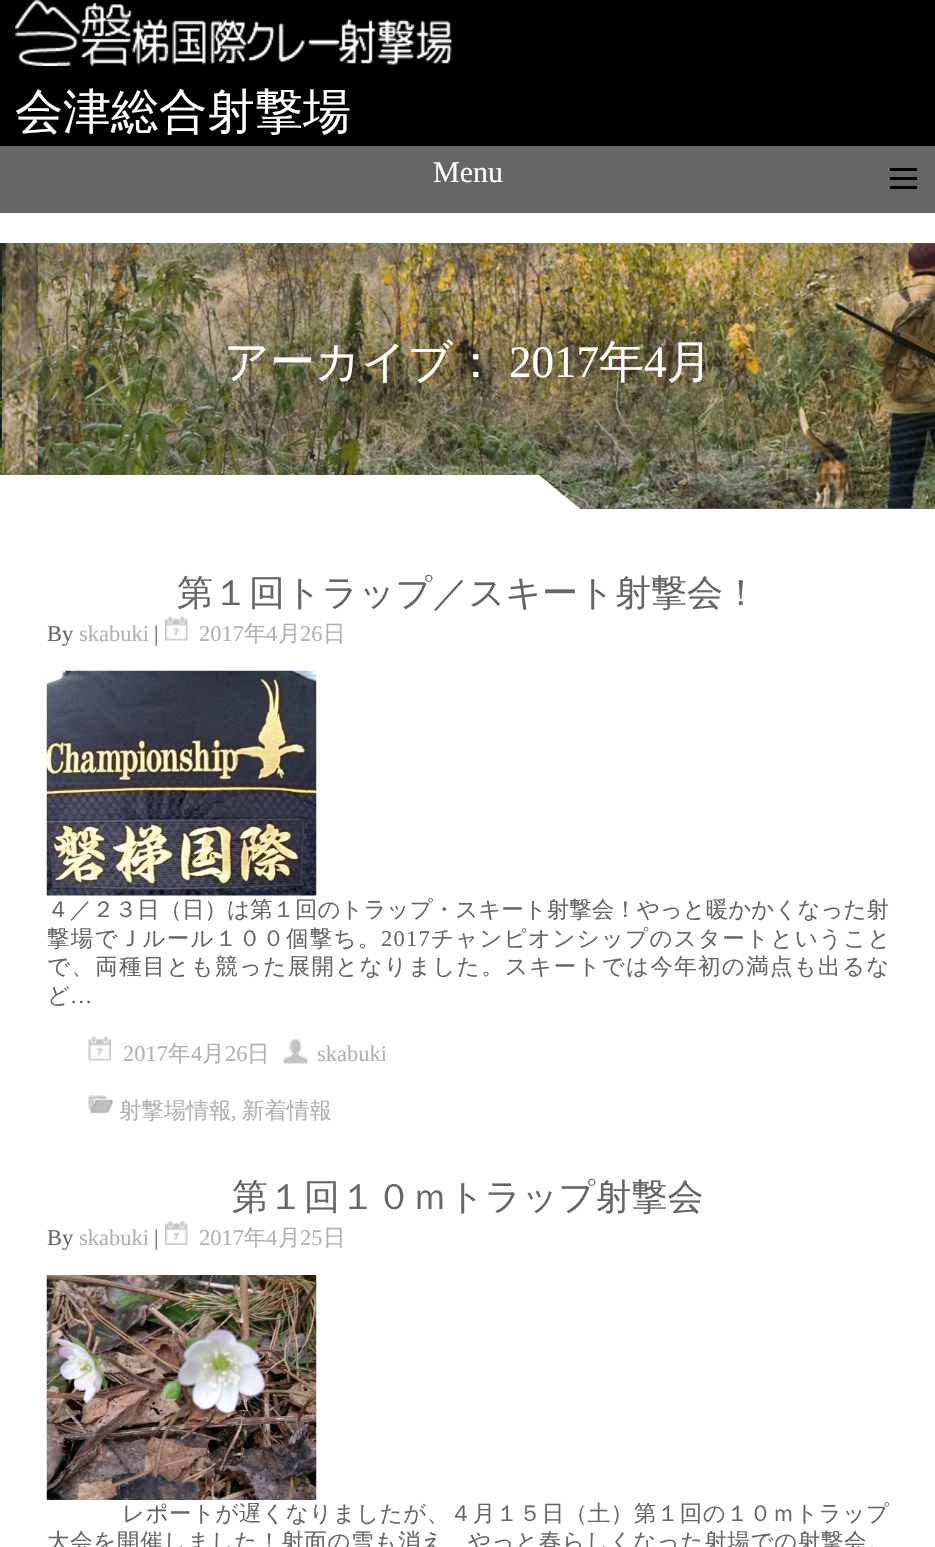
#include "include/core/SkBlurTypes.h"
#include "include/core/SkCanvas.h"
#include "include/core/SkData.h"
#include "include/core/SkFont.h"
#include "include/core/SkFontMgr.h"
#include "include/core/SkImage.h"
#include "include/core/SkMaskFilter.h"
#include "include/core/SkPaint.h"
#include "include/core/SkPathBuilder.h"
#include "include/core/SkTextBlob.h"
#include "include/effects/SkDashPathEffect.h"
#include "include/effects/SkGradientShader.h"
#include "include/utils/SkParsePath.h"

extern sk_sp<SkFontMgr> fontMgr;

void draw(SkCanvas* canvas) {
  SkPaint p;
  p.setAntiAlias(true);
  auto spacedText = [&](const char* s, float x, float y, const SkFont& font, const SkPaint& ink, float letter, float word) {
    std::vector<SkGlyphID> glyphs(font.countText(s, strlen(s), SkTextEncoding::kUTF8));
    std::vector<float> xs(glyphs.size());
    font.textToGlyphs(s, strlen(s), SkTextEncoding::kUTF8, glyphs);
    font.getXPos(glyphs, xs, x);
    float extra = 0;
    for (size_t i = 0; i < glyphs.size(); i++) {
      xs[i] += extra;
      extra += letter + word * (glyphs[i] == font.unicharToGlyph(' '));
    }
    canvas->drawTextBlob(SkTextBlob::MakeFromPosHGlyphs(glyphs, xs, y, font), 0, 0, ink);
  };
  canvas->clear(SK_ColorWHITE);
  p.setColor(SK_ColorBLACK);
  canvas->drawRect(SkRect::MakeLTRB(0, 0, 935, 146), p);
  canvas->drawImageRect(SkImages::DeferredFromEncodedData(SkData::MakeFromFileName("images/1.png")), SkRect::MakeLTRB(15, 0, 452, 66), SkSamplingOptions());
  p.setColor(SkColorSetRGB(102, 102, 102));
  canvas->drawRect(SkRect::MakeLTRB(0, 146, 935, 213), p);
  p.setColor(SK_ColorBLACK);
  canvas->drawRect(SkRect::MakeLTRB(890, 186, 917, 189), p);
  canvas->drawRect(SkRect::MakeLTRB(890, 177, 917, 180), p);
  canvas->drawRect(SkRect::MakeLTRB(890, 168, 917, 171), p);
  p.setColor(SkColorSetRGB(102, 102, 102));
  canvas->drawRect(SkRect::MakeLTRB(579, 508, 935, 509), p);
  canvas->drawImageRect(SkImages::DeferredFromEncodedData(SkData::MakeFromFileName("images/2.png")), SkRect::MakeLTRB(0, 243, 935, 509), SkSamplingOptions());
  p.setColor(SK_ColorWHITE);
  canvas->drawPath(SkPathBuilder().moveTo(-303, 475).lineTo(539, 475).lineTo(584, 512).lineTo(-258, 512).close().detach(), p);
  canvas->drawImageRect(SkImages::DeferredFromEncodedData(SkData::MakeFromFileName("images/3.png")), SkRect::MakeLTRB(165, 616, 188, 641), SkSamplingOptions());
  canvas->drawImageRect(SkImages::DeferredFromEncodedData(SkData::MakeFromFileName("images/4.png")), SkRect::MakeLTRB(46, 670, 317, 896), SkSamplingOptions());
  canvas->drawImageRect(SkImages::DeferredFromEncodedData(SkData::MakeFromFileName("images/5.png")), SkRect::MakeLTRB(88, 1036, 111, 1061), SkSamplingOptions());
  canvas->drawImageRect(SkImages::DeferredFromEncodedData(SkData::MakeFromFileName("images/6.png")), SkRect::MakeLTRB(283, 1039, 308, 1064), SkSamplingOptions());
  canvas->drawImageRect(SkImages::DeferredFromEncodedData(SkData::MakeFromFileName("images/7.png")), SkRect::MakeLTRB(88, 1095, 113, 1114), SkSamplingOptions());
  canvas->drawImageRect(SkImages::DeferredFromEncodedData(SkData::MakeFromFileName("images/8.png")), SkRect::MakeLTRB(165, 1221, 188, 1245), SkSamplingOptions());
  canvas->drawImageRect(SkImages::DeferredFromEncodedData(SkData::MakeFromFileName("images/9.png")), SkRect::MakeLTRB(46, 1275, 317, 1500), SkSamplingOptions());
  SkFont font1(fontMgr->matchFamilyStyle("WenQuanYi Zen Hei", SkFontStyle(500, SkFontStyle::kNormal_Width, SkFontStyle::kUpright_Slant)), 48);
  font1.setSubpixel(true);
  canvas->drawString("会津総合射撃場", 15, 128, font1, p);
  SkFont font2(fontMgr->matchFamilyStyle("Liberation Serif", SkFontStyle::Normal()), 30);
  font2.setSubpixel(true);
  canvas->drawString("Menu", 433, 182, font2, p);
  SkFont font3(fontMgr->matchFamilyStyle("WenQuanYi Zen Hei", SkFontStyle(500, SkFontStyle::kNormal_Width, SkFontStyle::kUpright_Slant)), 45);
  font3.setSubpixel(true);
  canvas->drawString("アーカイブ：", 224, 377, font3, p);
  SkFont font4(fontMgr->matchFamilyStyle("Liberation Serif", SkFontStyle::Normal()), 45);
  font4.setSubpixel(true);
  canvas->drawString("2017", 509, 377, font4, p);
  canvas->drawString("年", 599, 377, font3, p);
  canvas->drawString("4", 644, 377, font4, p);
  canvas->drawString("月", 667, 377, font3, p);
  SkFont font5(fontMgr->matchFamilyStyle("WenQuanYi Zen Hei", SkFontStyle(500, SkFontStyle::kNormal_Width, SkFontStyle::kUpright_Slant)), 36);
  font5.setSubpixel(true);
  p.setColor(SkColorSetRGB(102, 102, 102));
  canvas->drawString("第１回トラップ／スキート射撃会！", 177, 605, font5, p);
  SkFont font6(fontMgr->matchFamilyStyle("Liberation Serif", SkFontStyle::Normal()), 22.5f);
  font6.setSubpixel(true);
  canvas->drawString("By", 47, 641, font6, p);
  p.setColor(SkColorSetRGB(178, 176, 176));
  canvas->drawString("skabuki", 79, 641, font6, p);
  p.setColor(SkColorSetRGB(102, 102, 102));
  canvas->drawString("|", 154, 641, font6, p);
  p.setColor(SkColorSetRGB(178, 176, 176));
  canvas->drawString("2017", 199, 641, font6, p);
  SkFont font7(fontMgr->matchFamilyStyle("WenQuanYi Zen Hei", SkFontStyle(500, SkFontStyle::kNormal_Width, SkFontStyle::kUpright_Slant)), 22.5f);
  font7.setSubpixel(true);
  canvas->drawString("年", 244, 641, font7, p);
  canvas->drawString("4", 266, 641, font6, p);
  canvas->drawString("月", 278, 641, font7, p);
  canvas->drawString("26", 300, 641, font6, p);
  canvas->drawString("日", 323, 641, font7, p);
  p.setColor(SkColorSetRGB(102, 102, 102));
  canvas->drawString("４／２３日（日）は第１回のトラップ・スキート射撃会！やっと暖かかくなった射", 47, 917, font7, p);
  spacedText("撃場でＪルール１００個撃ち。", 47, 946, font7, p, 1.25f, 0);
  spacedText("2017", 381, 946, font6, p, 1.25f, 0);
  spacedText("チャンピオンシップのスタートということ", 431, 946, font7, p, 1.25f, 0);
  spacedText("で、両種目とも競った展開となりました。スキートでは今年初の満点も出るな", 47, 974, font7, p, 1.3f, 0);
  canvas->drawString("ど", 47, 1003, font7, p);
  canvas->drawString("…", 70, 1003, font6, p);
  p.setColor(SkColorSetRGB(178, 176, 176));
  canvas->drawString("2017", 123, 1061, font6, p);
  canvas->drawString("年", 168, 1061, font7, p);
  canvas->drawString("4", 191, 1061, font6, p);
  canvas->drawString("月", 202, 1061, font7, p);
  canvas->drawString("26", 225, 1061, font6, p);
  canvas->drawString("日", 247, 1061, font7, p);
  canvas->drawString("skabuki", 317, 1061, font6, p);
  canvas->drawString("射撃場情報", 119, 1118, font7, p);
  canvas->drawString(",", 231, 1118, font6, p);
  canvas->drawString("新着情報", 242, 1118, font7, p);
  p.setColor(SkColorSetRGB(102, 102, 102));
  canvas->drawString("第１回１０ｍトラップ射撃会", 232, 1209, font5, p);
  canvas->drawString("By", 47, 1245, font6, p);
  p.setColor(SkColorSetRGB(178, 176, 176));
  canvas->drawString("skabuki", 79, 1245, font6, p);
  p.setColor(SkColorSetRGB(102, 102, 102));
  canvas->drawString("|", 154, 1245, font6, p);
  p.setColor(SkColorSetRGB(178, 176, 176));
  canvas->drawString("2017", 199, 1245, font6, p);
  canvas->drawString("年", 244, 1245, font7, p);
  canvas->drawString("4", 266, 1245, font6, p);
  canvas->drawString("月", 278, 1245, font7, p);
  canvas->drawString("25", 300, 1245, font6, p);
  canvas->drawString("日", 323, 1245, font7, p);
  p.setColor(SkColorSetRGB(102, 102, 102));
  spacedText("レポートが遅くなりましたが、４月１５日（土）第１回の１０ｍトラップ", 122, 1521, font7, p, 0.5f, 0);
  spacedText("大会を開催しました！射面の雪も消え、やっと春らしくなった射場での射撃会。", 47, 1549, font7, p, 0.65f, 0);
}
